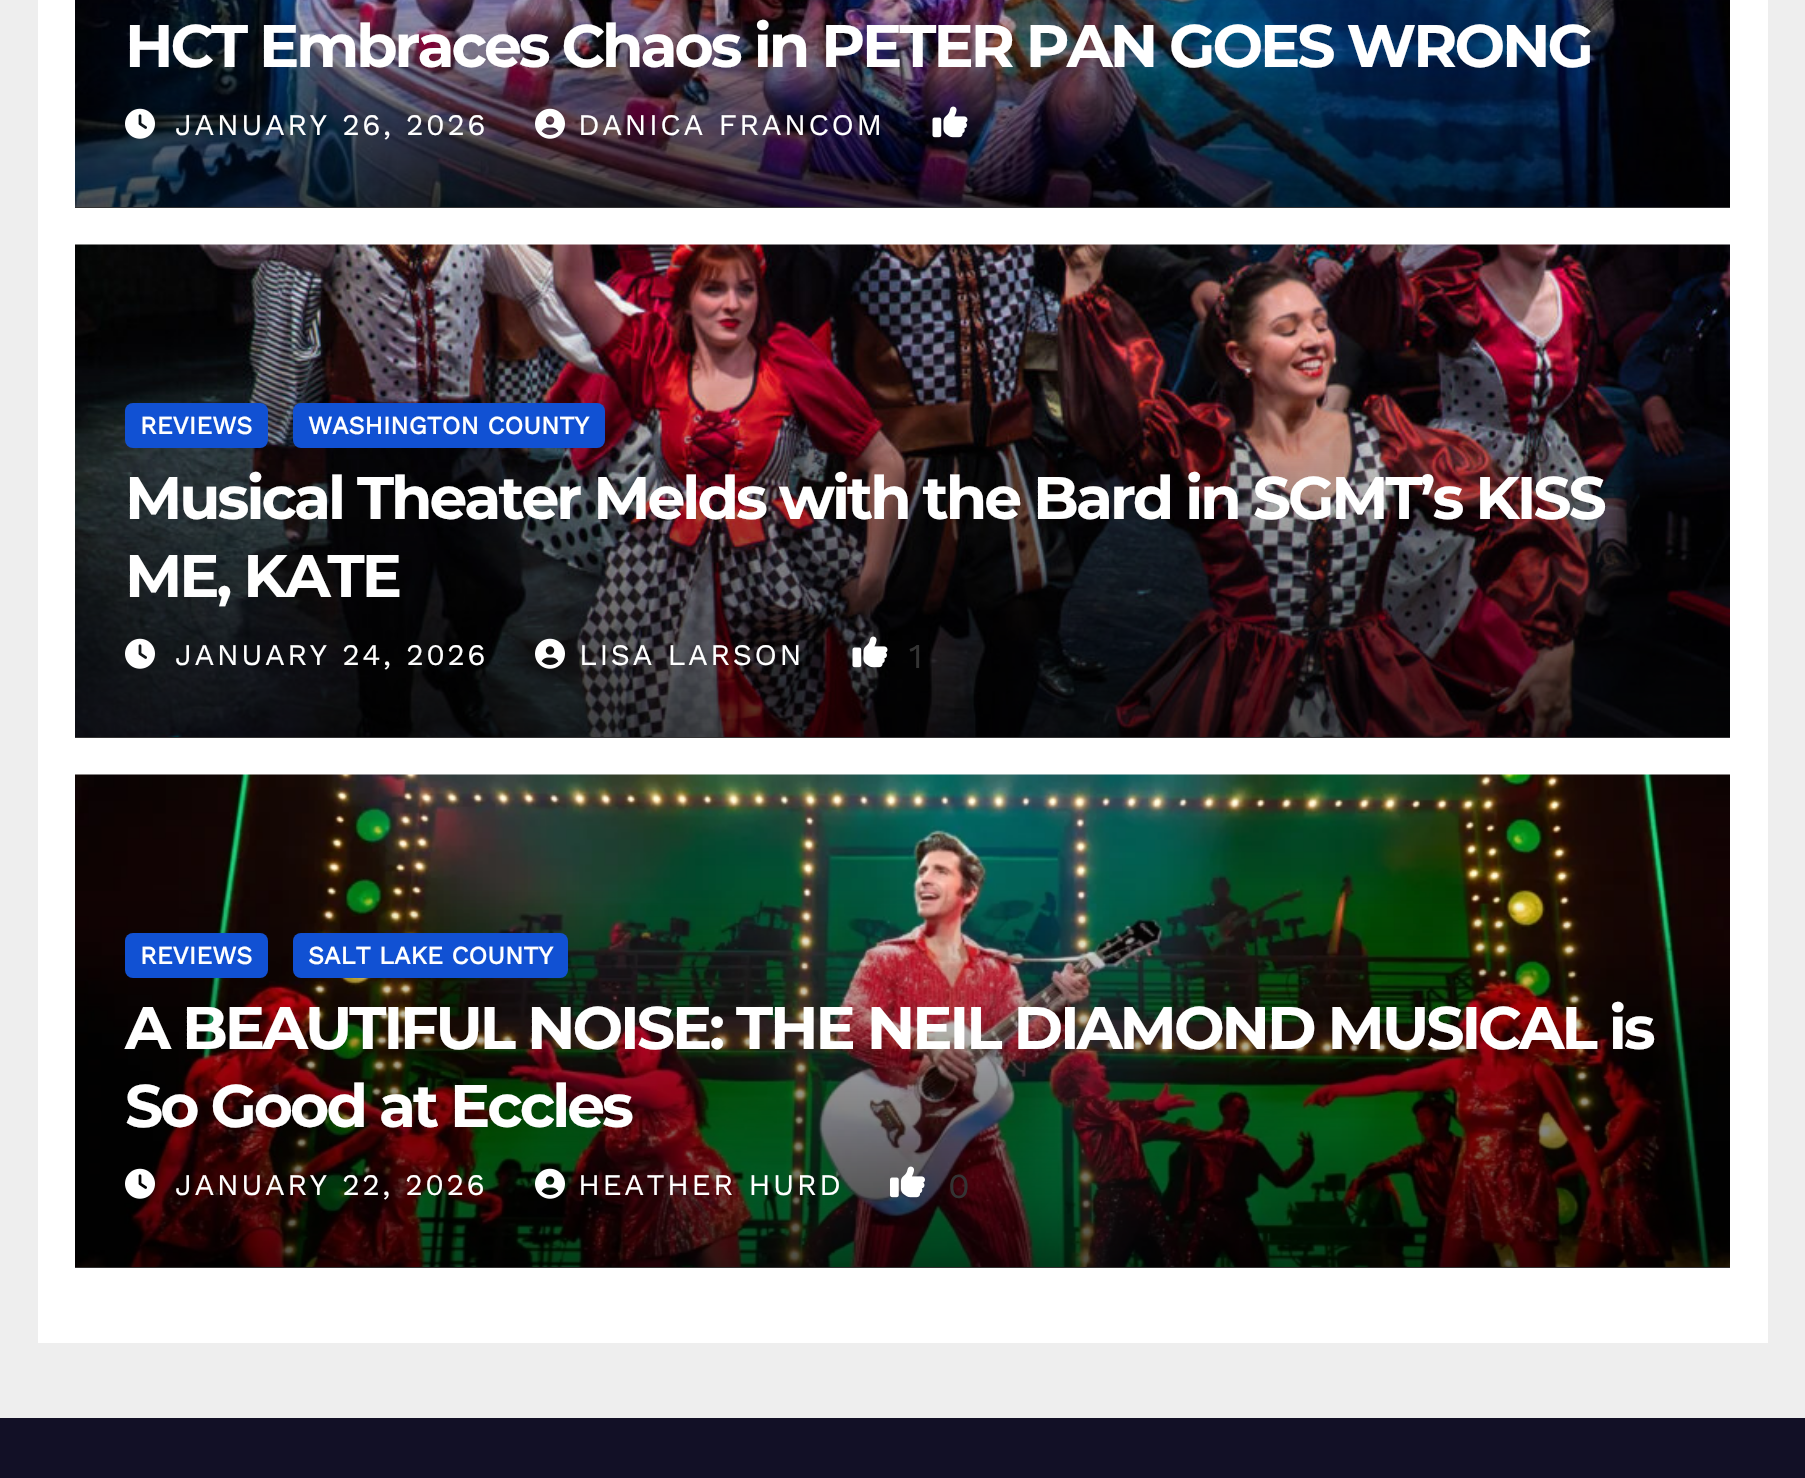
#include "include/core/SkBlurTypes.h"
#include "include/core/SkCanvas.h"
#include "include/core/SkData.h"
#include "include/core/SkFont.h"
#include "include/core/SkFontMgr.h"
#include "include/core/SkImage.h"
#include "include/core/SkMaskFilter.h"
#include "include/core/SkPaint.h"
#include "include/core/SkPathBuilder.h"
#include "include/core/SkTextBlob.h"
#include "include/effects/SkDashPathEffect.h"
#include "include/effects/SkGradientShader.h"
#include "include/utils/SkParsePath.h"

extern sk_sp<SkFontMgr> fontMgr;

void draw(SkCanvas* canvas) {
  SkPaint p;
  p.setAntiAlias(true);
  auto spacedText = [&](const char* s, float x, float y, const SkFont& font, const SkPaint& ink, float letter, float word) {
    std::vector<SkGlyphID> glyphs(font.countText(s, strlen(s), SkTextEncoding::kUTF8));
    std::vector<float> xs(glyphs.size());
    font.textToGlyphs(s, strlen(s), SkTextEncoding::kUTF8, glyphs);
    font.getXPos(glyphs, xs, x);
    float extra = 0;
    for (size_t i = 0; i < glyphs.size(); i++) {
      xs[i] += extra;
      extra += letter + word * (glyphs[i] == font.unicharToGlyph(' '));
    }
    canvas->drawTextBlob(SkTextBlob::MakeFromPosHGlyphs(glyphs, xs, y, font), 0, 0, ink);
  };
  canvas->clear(SkColorSetRGB(238, 238, 238));
  p.setColor(SK_ColorWHITE);
  canvas->drawRect(SkRect::MakeLTRB(38, 0, 1768, 1343), p);
  p.setColor(SkColorSetRGB(51, 51, 51));
  canvas->drawRect(SkRect::MakeLTRB(75, 207, 1730, 208), p);
  canvas->drawImageRect(SkImages::DeferredFromEncodedData(SkData::MakeFromFileName("images/1.png")), SkRect::MakeLTRB(75, 0, 1730, 207), SkSamplingOptions());
  canvas->drawImageRect(SkImages::DeferredFromEncodedData(SkData::MakeFromFileName("images/2.png")), SkRect::MakeLTRB(125, 108, 155, 139), SkSamplingOptions());
  canvas->drawImageRect(SkImages::DeferredFromEncodedData(SkData::MakeFromFileName("images/3.png")), SkRect::MakeLTRB(535, 108, 565, 139), SkSamplingOptions());
  canvas->drawImageRect(SkImages::DeferredFromEncodedData(SkData::MakeFromFileName("images/4.png")), SkRect::MakeLTRB(932, 106, 968, 138), SkSamplingOptions());
  canvas->drawRect(SkRect::MakeLTRB(75, 737, 1730, 738), p);
  canvas->drawImageRect(SkImages::DeferredFromEncodedData(SkData::MakeFromFileName("images/5.png")), SkRect::MakeLTRB(75, 244, 1730, 737), SkSamplingOptions());
  p.setColor(SkColorSetRGB(17, 81, 211));
  canvas->drawRoundRect(SkRect::MakeLTRB(125, 403, 268, 448), 8, 8, p);
  canvas->drawRoundRect(SkRect::MakeLTRB(293, 403, 605, 448), 8, 8, p);
  canvas->drawImageRect(SkImages::DeferredFromEncodedData(SkData::MakeFromFileName("images/6.png")), SkRect::MakeLTRB(125, 638, 155, 669), SkSamplingOptions());
  canvas->drawImageRect(SkImages::DeferredFromEncodedData(SkData::MakeFromFileName("images/7.png")), SkRect::MakeLTRB(535, 638, 565, 669), SkSamplingOptions());
  canvas->drawImageRect(SkImages::DeferredFromEncodedData(SkData::MakeFromFileName("images/8.png")), SkRect::MakeLTRB(852, 636, 888, 668), SkSamplingOptions());
  p.setColor(SkColorSetRGB(51, 51, 51));
  canvas->drawRect(SkRect::MakeLTRB(75, 1267, 1730, 1268), p);
  canvas->drawImageRect(SkImages::DeferredFromEncodedData(SkData::MakeFromFileName("images/9.png")), SkRect::MakeLTRB(75, 774, 1730, 1267), SkSamplingOptions());
  p.setColor(SkColorSetRGB(17, 81, 211));
  canvas->drawRoundRect(SkRect::MakeLTRB(125, 933, 268, 978), 8, 8, p);
  canvas->drawRoundRect(SkRect::MakeLTRB(293, 933, 568, 978), 8, 8, p);
  canvas->drawImageRect(SkImages::DeferredFromEncodedData(SkData::MakeFromFileName("images/10.png")), SkRect::MakeLTRB(125, 1168, 155, 1199), SkSamplingOptions());
  canvas->drawImageRect(SkImages::DeferredFromEncodedData(SkData::MakeFromFileName("images/11.png")), SkRect::MakeLTRB(535, 1168, 565, 1199), SkSamplingOptions());
  canvas->drawImageRect(SkImages::DeferredFromEncodedData(SkData::MakeFromFileName("images/12.png")), SkRect::MakeLTRB(890, 1166, 925, 1198), SkSamplingOptions());
  p.setColor(SkColorSetRGB(18, 16, 38));
  canvas->drawRect(SkRect::MakeLTRB(0, 1418, 1805, 1478), p);
  SkFont font1(fontMgr->matchFamilyStyle("Montserrat", SkFontStyle::Bold()), 60);
  font1.setSubpixel(true);
  p.setColor(SK_ColorWHITE);
  spacedText("HCT Embraces Chaos in PETER PAN GOES WRONG", 125, 67, font1, p, -3, 0);
  SkFont font2(fontMgr->matchFamilyStyle("Work Sans", SkFontStyle::Normal()), 30);
  font2.setSubpixel(true);
  spacedText("JANUARY 26, 2026", 175, 135, font2, p, 2.5f, 0);
  spacedText("DANICA FRANCOM", 578, 135, font2, p, 2.5f, 0);
  SkFont font3(fontMgr->matchFamilyStyle("Work Sans", SkFontStyle::Bold()), 25);
  font3.setSubpixel(true);
  canvas->drawString("REVIEWS", 140, 434, font3, p);
  canvas->drawString("WASHINGTON COUNTY", 308, 434, font3, p);
  spacedText("Musical Theater Melds with the Bard in SGMT’s KISS", 125, 519, font1, p, -3, 0);
  spacedText("ME, KATE", 125, 597, font1, p, -3, 0);
  spacedText("JANUARY 24, 2026", 175, 665, font2, p, 2.5f, 0);
  spacedText("LISA LARSON", 579, 665, font2, p, 2.5f, 0);
  SkFont font4(fontMgr->matchFamilyStyle("Work Sans", SkFontStyle::Normal()), 35);
  font4.setSubpixel(true);
  p.setColor(SkColorSetRGB(51, 51, 51));
  canvas->drawString("1", 909, 668, font4, p);
  p.setColor(SK_ColorWHITE);
  canvas->drawString("REVIEWS", 140, 964, font3, p);
  canvas->drawString("SALT LAKE COUNTY", 308, 964, font3, p);
  spacedText("A BEAUTIFUL NOISE: THE NEIL DIAMOND MUSICAL is", 125, 1049, font1, p, -3, 0);
  spacedText("So Good at Eccles", 125, 1127, font1, p, -3, 0);
  spacedText("JANUARY 22, 2026", 175, 1195, font2, p, 2.5f, 0);
  spacedText("HEATHER HURD", 578, 1195, font2, p, 2.5f, 0);
  p.setColor(SkColorSetRGB(51, 51, 51));
  canvas->drawString("0", 948, 1198, font4, p);
}
